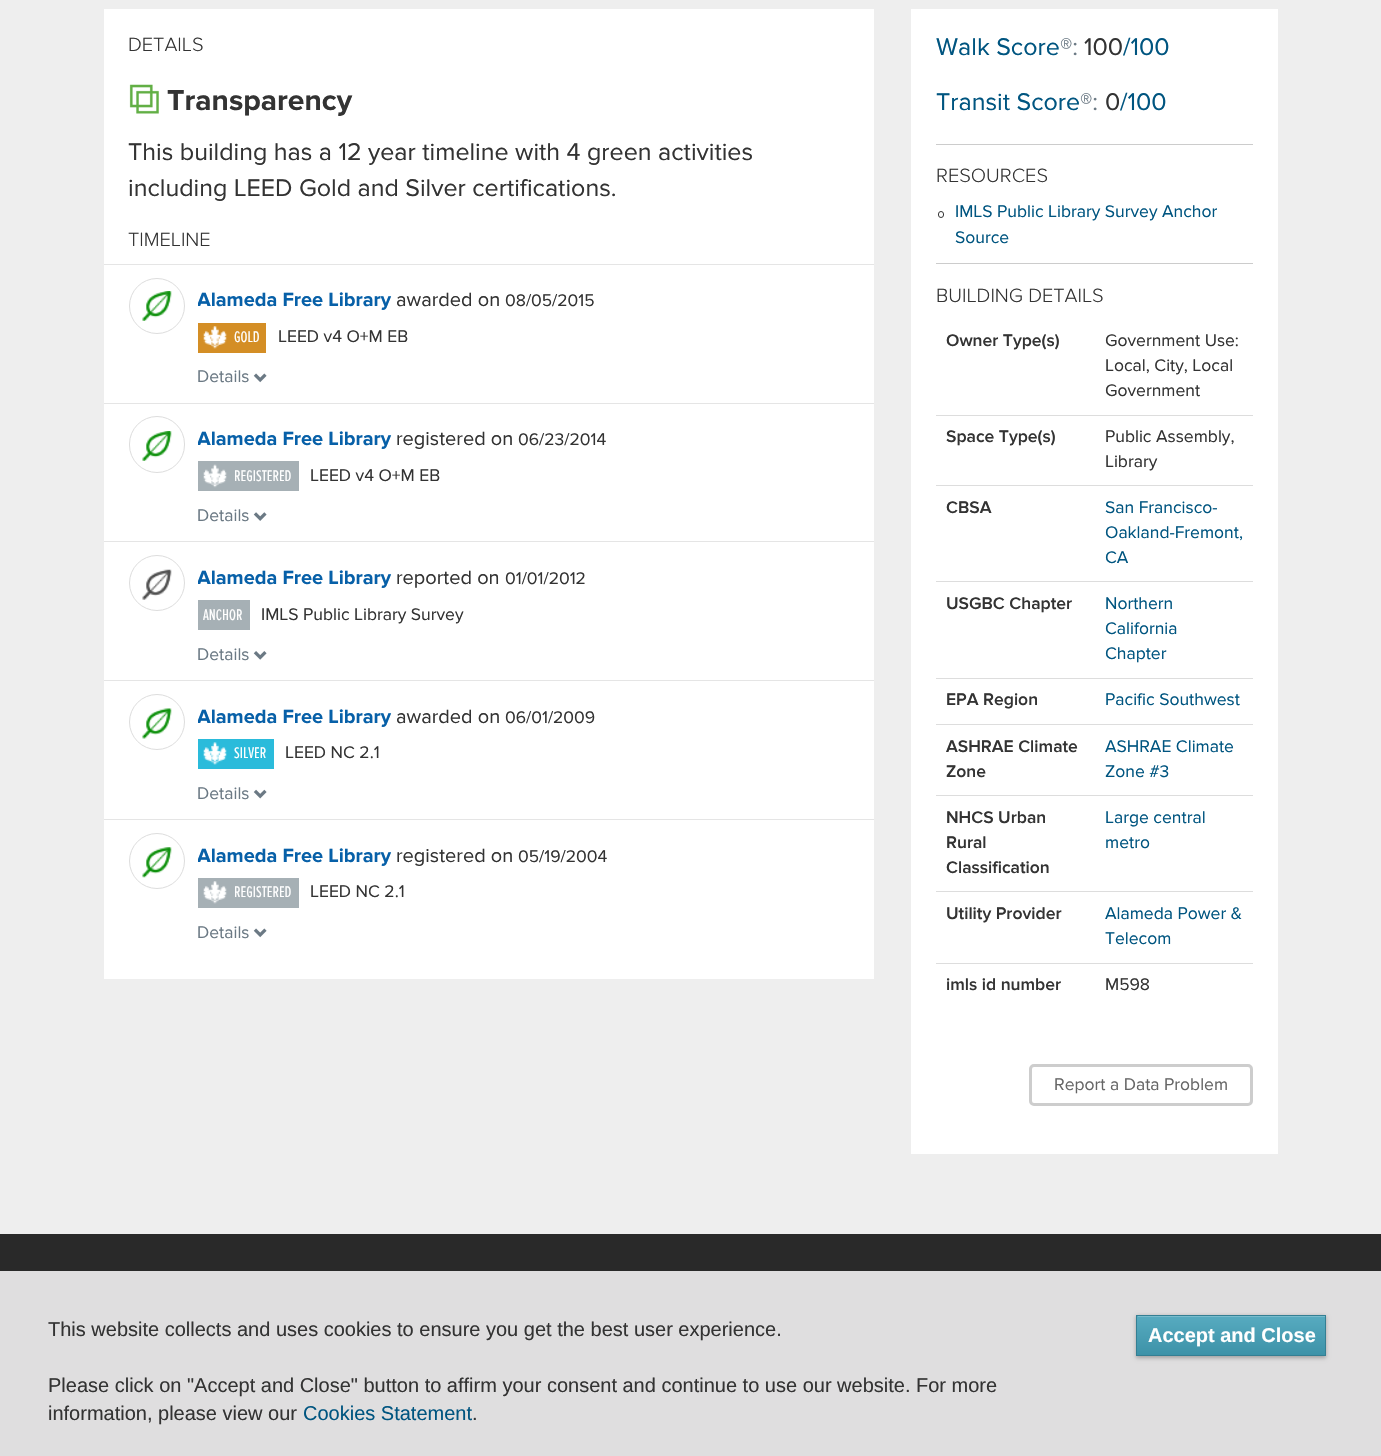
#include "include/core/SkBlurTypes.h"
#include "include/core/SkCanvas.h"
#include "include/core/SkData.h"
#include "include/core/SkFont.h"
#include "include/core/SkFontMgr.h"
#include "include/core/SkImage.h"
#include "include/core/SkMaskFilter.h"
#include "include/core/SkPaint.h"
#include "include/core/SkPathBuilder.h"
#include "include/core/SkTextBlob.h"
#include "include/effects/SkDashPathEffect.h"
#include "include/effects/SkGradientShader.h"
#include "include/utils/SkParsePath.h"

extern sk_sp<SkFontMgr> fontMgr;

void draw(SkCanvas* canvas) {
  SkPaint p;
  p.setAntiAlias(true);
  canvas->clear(SkColorSetRGB(238, 238, 238));
  p.setColor(SK_ColorWHITE);
  canvas->drawRect(SkRect::MakeLTRB(104, 9, 874, 979), p);
  canvas->drawImageRect(SkImages::DeferredFromEncodedData(SkData::MakeFromFileName("images/1.png")), SkRect::MakeLTRB(129, 84, 159, 114), SkSamplingOptions());
  p.setColor(SkColorSetRGB(229, 229, 229));
  canvas->drawRect(SkRect::MakeLTRB(104, 264, 874, 265), p);
  p.setStyle(SkPaint::kStroke_Style);
  p.setStrokeWidth(1);
  p.setColor(SkColorSetRGB(221, 221, 221));
  canvas->drawCircle(157, 306, 27.5f, p);
  canvas->drawImageRect(SkImages::DeferredFromEncodedData(SkData::MakeFromFileName("images/2.png")), SkRect::MakeLTRB(142, 291, 172, 321), SkSamplingOptions());
  p.setStyle(SkPaint::kFill_Style);
  p.setColor(SkColorSetRGB(212, 142, 37));
  canvas->drawRect(SkRect::MakeLTRB(198, 323, 266, 353), p);
  canvas->drawImageRect(SkImages::DeferredFromEncodedData(SkData::MakeFromFileName("images/3.png")), SkRect::MakeLTRB(203, 326, 227, 349), SkSamplingOptions());
  canvas->drawImageRect(SkImages::DeferredFromEncodedData(SkData::MakeFromFileName("images/4.png")), SkRect::MakeLTRB(253, 373, 267, 383), SkSamplingOptions());
  p.setColor(SkColorSetRGB(229, 229, 229));
  canvas->drawRect(SkRect::MakeLTRB(104, 403, 874, 404), p);
  p.setStyle(SkPaint::kStroke_Style);
  p.setColor(SkColorSetRGB(221, 221, 221));
  canvas->drawRoundRect(SkRect::MakeLTRB(129.5f, 416.5f, 184.5f, 472.5f), 27.5f, 27.5f, p);
  canvas->drawImageRect(SkImages::DeferredFromEncodedData(SkData::MakeFromFileName("images/2.png")), SkRect::MakeLTRB(142, 431, 172, 461), SkSamplingOptions());
  p.setStyle(SkPaint::kFill_Style);
  p.setColor(SkColorSetRGB(166, 176, 181));
  canvas->drawRect(SkRect::MakeLTRB(198, 461, 299, 491), p);
  canvas->drawImageRect(SkImages::DeferredFromEncodedData(SkData::MakeFromFileName("images/5.png")), SkRect::MakeLTRB(203, 464, 227, 488), SkSamplingOptions());
  canvas->drawImageRect(SkImages::DeferredFromEncodedData(SkData::MakeFromFileName("images/6.png")), SkRect::MakeLTRB(253, 512, 267, 521), SkSamplingOptions());
  p.setColor(SkColorSetRGB(229, 229, 229));
  canvas->drawRect(SkRect::MakeLTRB(104, 541, 874, 542), p);
  p.setStyle(SkPaint::kStroke_Style);
  p.setColor(SkColorSetRGB(221, 221, 221));
  canvas->drawCircle(157, 583, 27.5f, p);
  canvas->drawImageRect(SkImages::DeferredFromEncodedData(SkData::MakeFromFileName("images/7.png")), SkRect::MakeLTRB(142, 569, 172, 600), SkSamplingOptions());
  p.setStyle(SkPaint::kFill_Style);
  p.setColor(SkColorSetRGB(166, 176, 181));
  canvas->drawRect(SkRect::MakeLTRB(198, 600, 250, 630), p);
  canvas->drawImageRect(SkImages::DeferredFromEncodedData(SkData::MakeFromFileName("images/8.png")), SkRect::MakeLTRB(253, 651, 267, 660), SkSamplingOptions());
  p.setColor(SkColorSetRGB(229, 229, 229));
  canvas->drawRect(SkRect::MakeLTRB(104, 680, 874, 681), p);
  p.setStyle(SkPaint::kStroke_Style);
  p.setColor(SkColorSetRGB(221, 221, 221));
  canvas->drawCircle(157, 722, 27.5f, p);
  canvas->drawImageRect(SkImages::DeferredFromEncodedData(SkData::MakeFromFileName("images/9.png")), SkRect::MakeLTRB(142, 708, 172, 739), SkSamplingOptions());
  p.setStyle(SkPaint::kFill_Style);
  p.setColor(SkColorSetRGB(42, 187, 219));
  canvas->drawRect(SkRect::MakeLTRB(198, 739, 274, 769), p);
  canvas->drawImageRect(SkImages::DeferredFromEncodedData(SkData::MakeFromFileName("images/10.png")), SkRect::MakeLTRB(203, 742, 227, 765), SkSamplingOptions());
  canvas->drawImageRect(SkImages::DeferredFromEncodedData(SkData::MakeFromFileName("images/11.png")), SkRect::MakeLTRB(253, 789, 267, 799), SkSamplingOptions());
  p.setColor(SkColorSetRGB(229, 229, 229));
  canvas->drawRect(SkRect::MakeLTRB(104, 819, 874, 820), p);
  p.setStyle(SkPaint::kStroke_Style);
  p.setColor(SkColorSetRGB(221, 221, 221));
  canvas->drawCircle(157, 861, 27.5f, p);
  canvas->drawImageRect(SkImages::DeferredFromEncodedData(SkData::MakeFromFileName("images/12.png")), SkRect::MakeLTRB(142, 847, 172, 878), SkSamplingOptions());
  p.setStyle(SkPaint::kFill_Style);
  p.setColor(SkColorSetRGB(166, 176, 181));
  canvas->drawRect(SkRect::MakeLTRB(198, 878, 299, 908), p);
  canvas->drawImageRect(SkImages::DeferredFromEncodedData(SkData::MakeFromFileName("images/13.png")), SkRect::MakeLTRB(203, 881, 227, 904), SkSamplingOptions());
  canvas->drawImageRect(SkImages::DeferredFromEncodedData(SkData::MakeFromFileName("images/4.png")), SkRect::MakeLTRB(253, 928, 267, 938), SkSamplingOptions());
  p.setColor(SK_ColorWHITE);
  canvas->drawRect(SkRect::MakeLTRB(911, 9, 1278, 1154), p);
  p.setColor(SkColorSetRGB(204, 204, 204));
  canvas->drawRect(SkRect::MakeLTRB(936, 144, 1253, 145), p);
  canvas->drawRect(SkRect::MakeLTRB(936, 263, 1253, 264), p);
  p.setStyle(SkPaint::kStroke_Style);
  p.setColor(SkColorSetRGB(51, 51, 51));
  canvas->drawRoundRect(SkRect::MakeLTRB(938.5f, 211.5f, 943.5f, 217.5f), 2.5f, 2.5f, p);
  p.setStyle(SkPaint::kFill_Style);
  p.setColor(SkColorSetRGB(221, 221, 221));
  canvas->drawRect(SkRect::MakeLTRB(936, 415, 1253, 416), p);
  canvas->drawRect(SkRect::MakeLTRB(936, 485, 1253, 486), p);
  canvas->drawRect(SkRect::MakeLTRB(936, 581, 1253, 582), p);
  canvas->drawRect(SkRect::MakeLTRB(936, 678, 1253, 679), p);
  canvas->drawRect(SkRect::MakeLTRB(936, 724, 1253, 725), p);
  canvas->drawRect(SkRect::MakeLTRB(936, 795, 1253, 796), p);
  canvas->drawRect(SkRect::MakeLTRB(936, 891, 1253, 892), p);
  canvas->drawRect(SkRect::MakeLTRB(936, 963, 1253, 964), p);
  p.setStyle(SkPaint::kStroke_Style);
  p.setStrokeWidth(3);
  p.setColor(SkColorSetRGB(205, 205, 205));
  canvas->drawRoundRect(SkRect::MakeLTRB(1030.5f, 1065.5f, 1251.5f, 1104.5f), 3.5f, 3.5f, p);
  p.setStyle(SkPaint::kFill_Style);
  p.setColor(SkColorSetRGB(41, 41, 41));
  canvas->drawRect(SkRect::MakeLTRB(0, 1234, 1381, 1271), p);
  p.setColor(SkColorSetRGB(223, 222, 223));
  canvas->drawRect(SkRect::MakeLTRB(0, 1271, 1381, 1456), p);
  p.setColor(SkColorSetARGB(71, 0, 0, 0));
  p.setMaskFilter(SkMaskFilter::MakeBlur(kNormal_SkBlurStyle, 2));
  canvas->drawRect(SkRect::MakeLTRB(1136, 1316, 1326, 1358), p);
  p.setMaskFilter(nullptr);
  {
    const SkColor colors[] = {SkColorSetRGB(87, 171, 192), SkColorSetRGB(61, 146, 168)};
    const float stops[] = {0, 1};
    const SkPoint ends[] = {{1138, 1316}, {1138, 1355}};
    p.setShader(SkGradientShader::MakeLinear(ends, colors, stops, 2, SkTileMode::kClamp));
    p.setAlpha(255);
  }
  canvas->drawRect(SkRect::MakeLTRB(1137, 1316, 1325, 1355), p);
  p.setShader(nullptr);
  p.setColor(SkColorSetRGB(120, 187, 204));
  canvas->drawRect(SkRect::MakeLTRB(1138, 1316, 1325, 1317), p);
  p.setStyle(SkPaint::kStroke_Style);
  p.setStrokeWidth(1);
  p.setColor(SkColorSetRGB(52, 127, 147));
  canvas->drawRect(SkRect::MakeLTRB(1136.5f, 1315.5f, 1325.5f, 1355.5f), p);
  SkFont font1(fontMgr->matchFamilyStyle("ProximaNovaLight", SkFontStyle(300, SkFontStyle::kNormal_Width, SkFontStyle::kUpright_Slant)), 20);
  font1.setSubpixel(true);
  p.setStyle(SkPaint::kFill_Style);
  p.setColor(SkColorSetRGB(51, 51, 51));
  canvas->drawString("DETAILS", 128, 51, font1, p);
  SkFont font2(fontMgr->matchFamilyStyle("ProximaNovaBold", SkFontStyle::Bold()), 30);
  font2.setSubpixel(true);
  canvas->drawString("Transparency", 167, 110, font2, p);
  SkFont font3(fontMgr->matchFamilyStyle("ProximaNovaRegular", SkFontStyle::Normal()), 25);
  font3.setSubpixel(true);
  canvas->drawString("This building has a 12 year timeline with 4 green activities", 128, 160, font3, p);
  canvas->drawString("including LEED Gold and Silver certifications.", 128, 196, font3, p);
  canvas->drawString("TIMELINE", 128, 246, font1, p);
  canvas->save();
  canvas->clipRect(SkRect::MakeLTRB(198, 278, 849, 390));
  SkFont font4(fontMgr->matchFamilyStyle("ProximaNovaBold", SkFontStyle::Bold()), 20);
  font4.setSubpixel(true);
  p.setColor(SkColorSetRGB(7, 96, 168));
  canvas->drawString("Alameda Free Library", 197, 306, font4, p);
  canvas->restore();
  SkFont font5(fontMgr->matchFamilyStyle("ProximaNovaRegular", SkFontStyle::Normal()), 20);
  font5.setSubpixel(true);
  p.setColor(SkColorSetRGB(51, 51, 51));
  canvas->drawString("awarded on", 396, 306, font5, p);
  SkFont font6(fontMgr->matchFamilyStyle("ProximaNovaRegular", SkFontStyle::Normal()), 17.5f);
  font6.setSubpixel(true);
  canvas->drawString("08/05/2015", 505, 306, font6, p);
  SkFont font7(fontMgr->matchFamilyStyle("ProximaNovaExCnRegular", SkFontStyle::Normal()), 16);
  font7.setSubpixel(true);
  p.setColor(SK_ColorWHITE);
  canvas->drawString("GOLD", 234, 342, font7, p);
  p.setColor(SkColorSetRGB(51, 51, 51));
  canvas->drawString("LEED v4 O+M EB", 278, 342, font6, p);
  p.setColor(SkColorSetRGB(107, 121, 132));
  canvas->drawString("Details", 197, 382, font6, p);
  canvas->save();
  canvas->clipRect(SkRect::MakeLTRB(198, 416, 849, 529));
  p.setColor(SkColorSetRGB(7, 96, 168));
  canvas->drawString("Alameda Free Library", 197, 445, font4, p);
  canvas->restore();
  p.setColor(SkColorSetRGB(51, 51, 51));
  canvas->drawString("registered on", 396, 445, font5, p);
  canvas->drawString("06/23/2014", 518, 445, font6, p);
  p.setColor(SK_ColorWHITE);
  canvas->drawString("REGISTERED", 234, 481, font7, p);
  p.setColor(SkColorSetRGB(51, 51, 51));
  canvas->drawString("LEED v4 O+M EB", 310, 481, font6, p);
  p.setColor(SkColorSetRGB(107, 121, 132));
  canvas->drawString("Details", 197, 521, font6, p);
  canvas->save();
  canvas->clipRect(SkRect::MakeLTRB(198, 555, 849, 668));
  p.setColor(SkColorSetRGB(7, 96, 168));
  canvas->drawString("Alameda Free Library", 197, 584, font4, p);
  canvas->restore();
  p.setColor(SkColorSetRGB(51, 51, 51));
  canvas->drawString("reported on", 396, 584, font5, p);
  canvas->drawString("01/01/2012", 505, 584, font6, p);
  p.setColor(SK_ColorWHITE);
  canvas->drawString("ANCHOR", 203, 620, font7, p);
  p.setColor(SkColorSetRGB(51, 51, 51));
  canvas->drawString("IMLS Public Library Survey", 261, 620, font6, p);
  p.setColor(SkColorSetRGB(107, 121, 132));
  canvas->drawString("Details", 197, 660, font6, p);
  canvas->save();
  canvas->clipRect(SkRect::MakeLTRB(198, 694, 849, 806));
  p.setColor(SkColorSetRGB(7, 96, 168));
  canvas->drawString("Alameda Free Library", 197, 723, font4, p);
  canvas->restore();
  p.setColor(SkColorSetRGB(51, 51, 51));
  canvas->drawString("awarded on", 396, 723, font5, p);
  canvas->drawString("06/01/2009", 505, 723, font6, p);
  p.setColor(SK_ColorWHITE);
  canvas->drawString("SILVER", 234, 758, font7, p);
  p.setColor(SkColorSetRGB(51, 51, 51));
  canvas->drawString("LEED NC 2.1", 285, 758, font6, p);
  p.setColor(SkColorSetRGB(107, 121, 132));
  canvas->drawString("Details", 197, 799, font6, p);
  canvas->save();
  canvas->clipRect(SkRect::MakeLTRB(198, 833, 849, 945));
  p.setColor(SkColorSetRGB(7, 96, 168));
  canvas->drawString("Alameda Free Library", 197, 862, font4, p);
  canvas->restore();
  p.setColor(SkColorSetRGB(51, 51, 51));
  canvas->drawString("registered on", 396, 862, font5, p);
  canvas->drawString("05/19/2004", 518, 862, font6, p);
  p.setColor(SK_ColorWHITE);
  canvas->drawString("REGISTERED", 234, 897, font7, p);
  p.setColor(SkColorSetRGB(51, 51, 51));
  canvas->drawString("LEED NC 2.1", 310, 897, font6, p);
  p.setColor(SkColorSetRGB(107, 121, 132));
  canvas->drawString("Details", 197, 938, font6, p);
  p.setColor(SkColorSetRGB(0, 85, 128));
  canvas->drawString("Walk Score", 936, 55, font3, p);
  p.setColor(SkColorSetRGB(107, 121, 132));
  canvas->drawString("®:", 1060, 55, font3, p);
  p.setColor(SkColorSetRGB(51, 51, 51));
  canvas->drawString("100", 1084, 55, font3, p);
  p.setColor(SkColorSetRGB(0, 85, 128));
  canvas->drawString("/100", 1123, 55, font3, p);
  canvas->drawString("Transit Score", 936, 110, font3, p);
  p.setColor(SkColorSetRGB(107, 121, 132));
  canvas->drawString("®:", 1080, 110, font3, p);
  p.setColor(SkColorSetRGB(51, 51, 51));
  canvas->drawString("0", 1105, 110, font3, p);
  p.setColor(SkColorSetRGB(0, 85, 128));
  canvas->drawString("/100", 1120, 110, font3, p);
  p.setColor(SkColorSetRGB(51, 51, 51));
  canvas->drawString("RESOURCES", 936, 182, font1, p);
  p.setColor(SkColorSetRGB(0, 85, 128));
  canvas->drawString("IMLS Public Library Survey Anchor", 955, 217, font6, p);
  canvas->drawString("Source", 955, 243, font6, p);
  p.setColor(SkColorSetRGB(51, 51, 51));
  canvas->drawString("BUILDING DETAILS", 936, 302, font1, p);
  SkFont font8(fontMgr->matchFamilyStyle("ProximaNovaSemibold", SkFontStyle(600, SkFontStyle::kNormal_Width, SkFontStyle::kUpright_Slant)), 17.5f);
  font8.setSubpixel(true);
  canvas->drawString("Owner Type(s)", 946, 346, font8, p);
  canvas->drawString("Government Use:", 1105, 346, font6, p);
  canvas->drawString("Local, City, Local", 1105, 371, font6, p);
  canvas->drawString("Government", 1105, 396, font6, p);
  canvas->drawString("Space Type(s)", 946, 442, font8, p);
  canvas->drawString("Public Assembly,", 1105, 442, font6, p);
  canvas->drawString("Library", 1105, 467, font6, p);
  canvas->drawString("CBSA", 946, 513, font8, p);
  p.setColor(SkColorSetRGB(0, 85, 128));
  canvas->drawString("San Francisco-", 1105, 513, font6, p);
  canvas->drawString("Oakland-Fremont,", 1105, 538, font6, p);
  canvas->drawString("CA", 1105, 563, font6, p);
  p.setColor(SkColorSetRGB(51, 51, 51));
  canvas->drawString("USGBC Chapter", 946, 609, font8, p);
  p.setColor(SkColorSetRGB(0, 85, 128));
  canvas->drawString("Northern", 1105, 609, font6, p);
  canvas->drawString("California", 1105, 634, font6, p);
  canvas->drawString("Chapter", 1105, 659, font6, p);
  p.setColor(SkColorSetRGB(51, 51, 51));
  canvas->drawString("EPA Region", 946, 705, font8, p);
  p.setColor(SkColorSetRGB(0, 85, 128));
  canvas->drawString("Pacific Southwest", 1105, 705, font6, p);
  p.setColor(SkColorSetRGB(51, 51, 51));
  canvas->drawString("ASHRAE Climate", 946, 752, font8, p);
  canvas->drawString("Zone", 946, 777, font8, p);
  p.setColor(SkColorSetRGB(0, 85, 128));
  canvas->drawString("ASHRAE Climate", 1105, 752, font6, p);
  canvas->drawString("Zone #3", 1105, 777, font6, p);
  p.setColor(SkColorSetRGB(51, 51, 51));
  canvas->drawString("NHCS Urban", 946, 823, font8, p);
  canvas->drawString("Rural", 946, 848, font8, p);
  canvas->drawString("Classification", 946, 873, font8, p);
  p.setColor(SkColorSetRGB(0, 85, 128));
  canvas->drawString("Large central", 1105, 823, font6, p);
  canvas->drawString("metro", 1105, 848, font6, p);
  p.setColor(SkColorSetRGB(51, 51, 51));
  canvas->drawString("Utility Provider", 946, 919, font8, p);
  p.setColor(SkColorSetRGB(0, 85, 128));
  canvas->drawString("Alameda Power &", 1105, 919, font6, p);
  canvas->drawString("Telecom", 1105, 944, font6, p);
  p.setColor(SkColorSetRGB(51, 51, 51));
  canvas->drawString("imls id number", 946, 990, font8, p);
  canvas->drawString("M598", 1105, 990, font6, p);
  p.setColor(SkColorSetRGB(102, 102, 102));
  canvas->drawString("Report a Data Problem", 1054, 1090, font6, p);
  SkFont font9(fontMgr->matchFamilyStyle("Liberation Sans", SkFontStyle::Normal()), 20);
  font9.setSubpixel(true);
  p.setColor(SkColorSetRGB(51, 51, 51));
  canvas->drawString("This website collects and uses cookies to ensure you get the best user experience.", 48, 1336, font9, p);
  canvas->drawString("Please click on \"Accept and Close\" button to affirm your consent and continue to use our website. For more", 48, 1392, font9, p);
  canvas->drawString("information, please view our", 48, 1420, font9, p);
  p.setColor(SkColorSetRGB(0, 85, 128));
  canvas->drawString("Cookies Statement", 303, 1420, font9, p);
  p.setColor(SkColorSetRGB(51, 51, 51));
  canvas->drawString(".", 472, 1420, font9, p);
  SkFont font10(fontMgr->matchFamilyStyle("Liberation Sans", SkFontStyle::Bold()), 20);
  font10.setSubpixel(true);
  p.setColor(SK_ColorWHITE);
  canvas->drawString("Accept and Close", 1148, 1342, font10, p);
}
